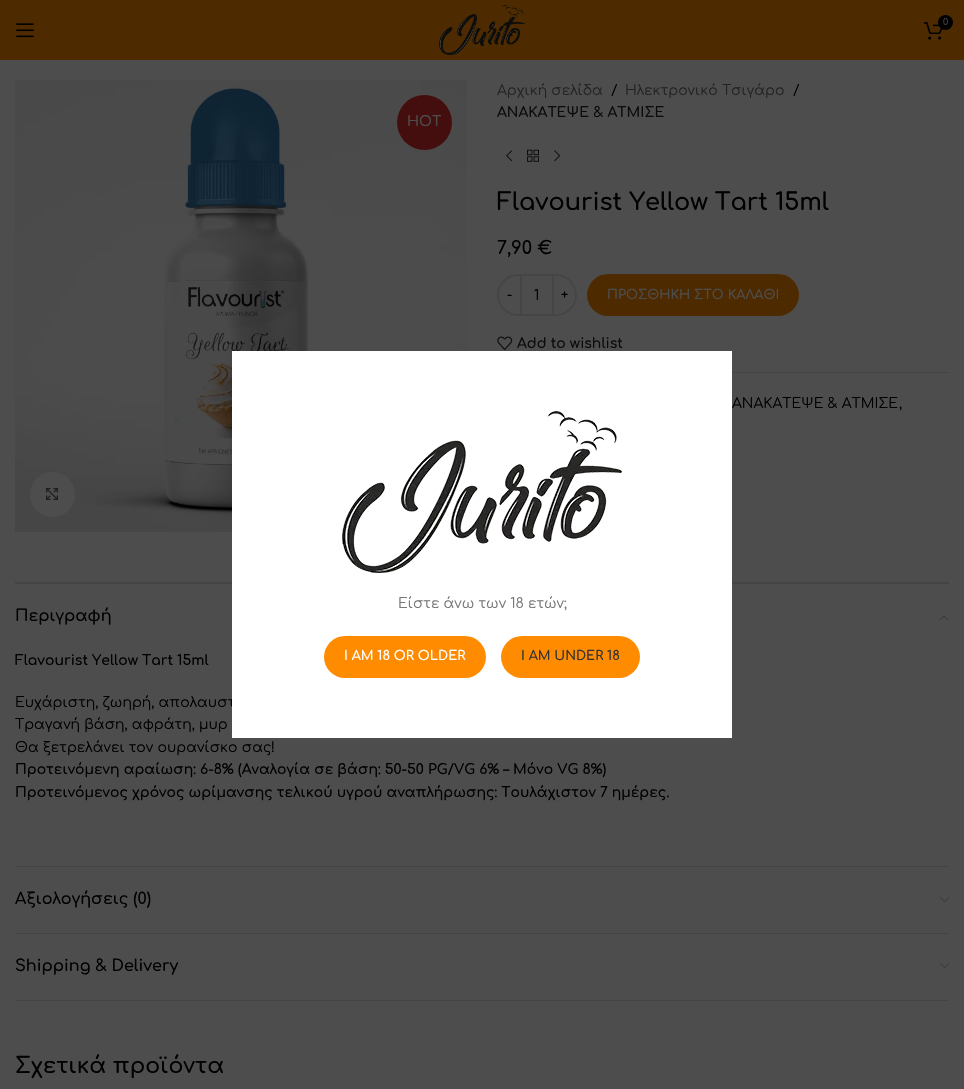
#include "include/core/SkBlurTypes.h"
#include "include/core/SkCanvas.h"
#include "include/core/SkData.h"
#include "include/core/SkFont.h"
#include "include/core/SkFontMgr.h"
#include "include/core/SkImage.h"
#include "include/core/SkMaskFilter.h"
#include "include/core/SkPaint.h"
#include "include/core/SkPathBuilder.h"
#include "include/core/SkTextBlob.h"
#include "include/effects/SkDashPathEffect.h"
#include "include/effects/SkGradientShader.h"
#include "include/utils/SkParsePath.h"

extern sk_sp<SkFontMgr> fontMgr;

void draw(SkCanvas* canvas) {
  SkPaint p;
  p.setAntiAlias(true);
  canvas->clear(SkColorSetRGB(77, 77, 77));
  p.setColor(SkColorSetRGB(77, 42, 0));
  canvas->drawRect(SkRect::MakeLTRB(0, 0, 964, 60), p);
  canvas->drawImageRect(SkImages::DeferredFromEncodedData(SkData::MakeFromFileName("images/1.png")), SkRect::MakeLTRB(439, 5, 525, 55), SkSamplingOptions());
  canvas->drawImageRect(SkImages::DeferredFromEncodedData(SkData::MakeFromFileName("images/2.png")), SkRect::MakeLTRB(924, 22, 943, 40), SkSamplingOptions());
  p.setColor(SK_ColorBLACK);
  canvas->drawCircle(945.5f, 22.5f, 7.5f, p);
  canvas->drawImageRect(SkImages::DeferredFromEncodedData(SkData::MakeFromFileName("images/3.png")), SkRect::MakeLTRB(16, 23, 34, 38), SkSamplingOptions());
  canvas->drawImageRect(SkImages::DeferredFromEncodedData(SkData::MakeFromFileName("images/4.png")), SkRect::MakeLTRB(15, 80, 467, 532), SkSamplingOptions());
  p.setColor(SkColorSetRGB(68, 14, 14));
  canvas->drawCircle(424.5f, 122.5f, 27.5f, p);
  p.setColor(SkColorSetRGB(77, 77, 77));
  canvas->drawCircle(52.5f, 494.5f, 22.5f, p);
  canvas->drawImageRect(SkImages::DeferredFromEncodedData(SkData::MakeFromFileName("images/5.png")), SkRect::MakeLTRB(46, 488, 58, 500), SkSamplingOptions());
  canvas->drawImageRect(SkImages::DeferredFromEncodedData(SkData::MakeFromFileName("images/6.png")), SkRect::MakeLTRB(506, 150, 513, 162), SkSamplingOptions());
  canvas->drawImageRect(SkImages::DeferredFromEncodedData(SkData::MakeFromFileName("images/7.png")), SkRect::MakeLTRB(527, 149, 539, 162), SkSamplingOptions());
  canvas->drawImageRect(SkImages::DeferredFromEncodedData(SkData::MakeFromFileName("images/8.png")), SkRect::MakeLTRB(554, 150, 561, 162), SkSamplingOptions());
  p.setStyle(SkPaint::kStroke_Style);
  p.setStrokeWidth(2);
  p.setColor(SkColorSetRGB(69, 69, 69));
  canvas->drawPath(SkPathBuilder().moveTo(518, 275).lineTo(521, 275).lineTo(521, 315).lineTo(518, 315).cubicTo(507, 315, 498, 306, 498, 295).cubicTo(498, 284, 507, 275, 518, 275).close().detach(), p);
  p.setStyle(SkPaint::kFill_Style);
  canvas->drawRect(SkRect::MakeLTRB(522, 274, 552, 276), p);
  canvas->drawRect(SkRect::MakeLTRB(522, 314, 552, 316), p);
  p.setStyle(SkPaint::kStroke_Style);
  canvas->drawPath(SkPathBuilder().moveTo(553, 275).lineTo(556, 275).cubicTo(567, 275, 576, 284, 576, 295).cubicTo(576, 306, 567, 315, 556, 315).lineTo(553, 315).close().detach(), p);
  p.setStyle(SkPaint::kFill_Style);
  p.setColor(SkColorSetRGB(77, 42, 0));
  canvas->drawRoundRect(SkRect::MakeLTRB(587, 274, 799, 316), 21, 21, p);
  canvas->drawImageRect(SkImages::DeferredFromEncodedData(SkData::MakeFromFileName("images/9.png")), SkRect::MakeLTRB(497, 336, 513, 350), SkSamplingOptions());
  p.setColor(SkColorSetRGB(68, 68, 68));
  canvas->drawRect(SkRect::MakeLTRB(732, 372, 949, 373), p);
  canvas->drawRect(SkRect::MakeLTRB(15, 582, 949, 584), p);
  canvas->drawRect(SkRect::MakeLTRB(15, 866, 949, 867), p);
  canvas->drawImageRect(SkImages::DeferredFromEncodedData(SkData::MakeFromFileName("images/10.png")), SkRect::MakeLTRB(939, 615, 949, 621), SkSamplingOptions());
  canvas->drawRect(SkRect::MakeLTRB(15, 933, 949, 934), p);
  canvas->drawImageRect(SkImages::DeferredFromEncodedData(SkData::MakeFromFileName("images/11.png")), SkRect::MakeLTRB(940, 897, 950, 902), SkSamplingOptions());
  canvas->drawRect(SkRect::MakeLTRB(15, 1000, 949, 1001), p);
  canvas->drawImageRect(SkImages::DeferredFromEncodedData(SkData::MakeFromFileName("images/11.png")), SkRect::MakeLTRB(940, 963, 950, 968), SkSamplingOptions());
  SkFont font1(fontMgr->matchFamilyStyle("Comfortaa", SkFontStyle::Normal()), 9);
  font1.setSubpixel(true);
  p.setColor(SkColorSetRGB(77, 77, 77));
  canvas->drawString("0", 943, 25, font1, p);
  SkFont font2(fontMgr->matchFamilyStyle("Comfortaa", SkFontStyle(600, SkFontStyle::kNormal_Width, SkFontStyle::kUpright_Slant)), 14);
  font2.setSubpixel(true);
  canvas->drawString("HOT", 407, 126, font2, p);
  SkFont font3(fontMgr->matchFamilyStyle("Comfortaa", SkFontStyle::Normal()), 14);
  font3.setSubpixel(true);
  p.setColor(SkColorSetRGB(35, 35, 35));
  canvas->drawString("Αρχική σελίδα", 497, 95, font3, p);
  p.setColor(SK_ColorBLACK);
  canvas->drawString("/", 611, 95, font3, p);
  p.setColor(SkColorSetRGB(35, 35, 35));
  canvas->drawString("Ηλεκτρονικό Τσιγάρο", 625, 95, font3, p);
  p.setColor(SK_ColorBLACK);
  canvas->drawString("/", 793, 95, font3, p);
  p.setColor(SkColorSetRGB(11, 11, 11));
  canvas->drawString("ΑΝΑΚΑΤΕΨΕ & ΑΤΜΙΣΕ", 497, 117, font2, p);
  SkFont font4(fontMgr->matchFamilyStyle("Comfortaa", SkFontStyle(600, SkFontStyle::kNormal_Width, SkFontStyle::kUpright_Slant)), 24);
  font4.setSubpixel(true);
  p.setColor(SK_ColorBLACK);
  canvas->drawString("Flavourist Yellow Tart 15ml", 497, 210, font4, p);
  SkFont font5(fontMgr->matchFamilyStyle("Comfortaa", SkFontStyle(600, SkFontStyle::kNormal_Width, SkFontStyle::kUpright_Slant)), 18);
  font5.setSubpixel(true);
  canvas->drawString("7,90 €", 497, 254, font5, p);
  SkFont font6(fontMgr->matchFamilyStyle("Comfortaa", SkFontStyle(600, SkFontStyle::kNormal_Width, SkFontStyle::kUpright_Slant)), 13);
  font6.setSubpixel(true);
  canvas->drawString("-", 507, 299, font6, p);
  canvas->drawString("1", 534, 300, font3, p);
  canvas->drawString("+", 561, 299, font6, p);
  p.setColor(SkColorSetRGB(77, 77, 77));
  canvas->drawString("ΠΡΟΣΘΗΚΗ ΣΤΟ ΚΑΛΑΘΙ", 607, 299, font6, p);
  p.setColor(SkColorSetRGB(11, 11, 11));
  canvas->drawString("Add to wishlist", 517, 348, font2, p);
  p.setColor(SK_ColorBLACK);
  canvas->drawString("ΑΝΑΚΑΤΕΨΕ & ΑΤΜΙΣΕ", 732, 408, font3, p);
  canvas->drawString(",", 899, 408, font3, p);
  SkFont font7(fontMgr->matchFamilyStyle("Comfortaa", SkFontStyle(600, SkFontStyle::kNormal_Width, SkFontStyle::kUpright_Slant)), 16);
  font7.setSubpixel(true);
  canvas->drawString("Περιγραφή", 15, 621, font7, p);
  canvas->drawString("Flavourist Yellow Tart 15ml", 15, 665, font2, p);
  canvas->drawString("Ευχάριστη, ζωηρή, απολαυστ", 15, 707, font3, p);
  canvas->drawString("Τραγανή βάση, αφράτη, μυρ", 15, 729, font3, p);
  canvas->drawString("Θα ξετρελάνει τον ουρανίσκο σας!", 15, 752, font3, p);
  canvas->drawString("Προτεινόμενη αραίωση: 6-8% (Αναλογία σε βάση: 50-50 PG/VG 6% – Μόνο VG 8%)", 15, 774, font2, p);
  canvas->drawString("Προτεινόμενος χρόνος ωρίμανσης τελικού υγρού αναπλήρωσης: Τουλάχιστον 7 ημέρες.", 15, 797, font2, p);
  canvas->drawString("Αξιολογήσεις (0)", 15, 904, font7, p);
  canvas->drawString("Shipping & Delivery", 15, 971, font7, p);
  SkFont font8(fontMgr->matchFamilyStyle("Comfortaa", SkFontStyle(600, SkFontStyle::kNormal_Width, SkFontStyle::kUpright_Slant)), 22);
  font8.setSubpixel(true);
  canvas->drawString("Σχετικά προϊόντα", 15, 1073, font8, p);
  p.setColor(SK_ColorWHITE);
  canvas->drawRect(SkRect::MakeLTRB(232, 351, 732, 738), p);
  canvas->drawImageRect(SkImages::DeferredFromEncodedData(SkData::MakeFromFileName("images/12.png")), SkRect::MakeLTRB(342, 411, 622, 573), SkSamplingOptions());
  p.setColor(SkColorSetRGB(118, 118, 118));
  canvas->drawString("Είστε άνω των 18 ετών;", 398, 608, font3, p);
  p.setColor(SkColorSetRGB(255, 139, 0));
  canvas->drawRoundRect(SkRect::MakeLTRB(324, 636, 486, 678), 21, 21, p);
  p.setColor(SK_ColorWHITE);
  canvas->drawString("I AM 18 OR OLDER", 344, 660, font6, p);
  p.setColor(SkColorSetRGB(255, 139, 0));
  canvas->drawRoundRect(SkRect::MakeLTRB(501, 636, 640, 678), 21, 21, p);
  p.setColor(SkColorSetRGB(51, 51, 51));
  canvas->drawString("I AM UNDER 18", 521, 660, font6, p);
}
